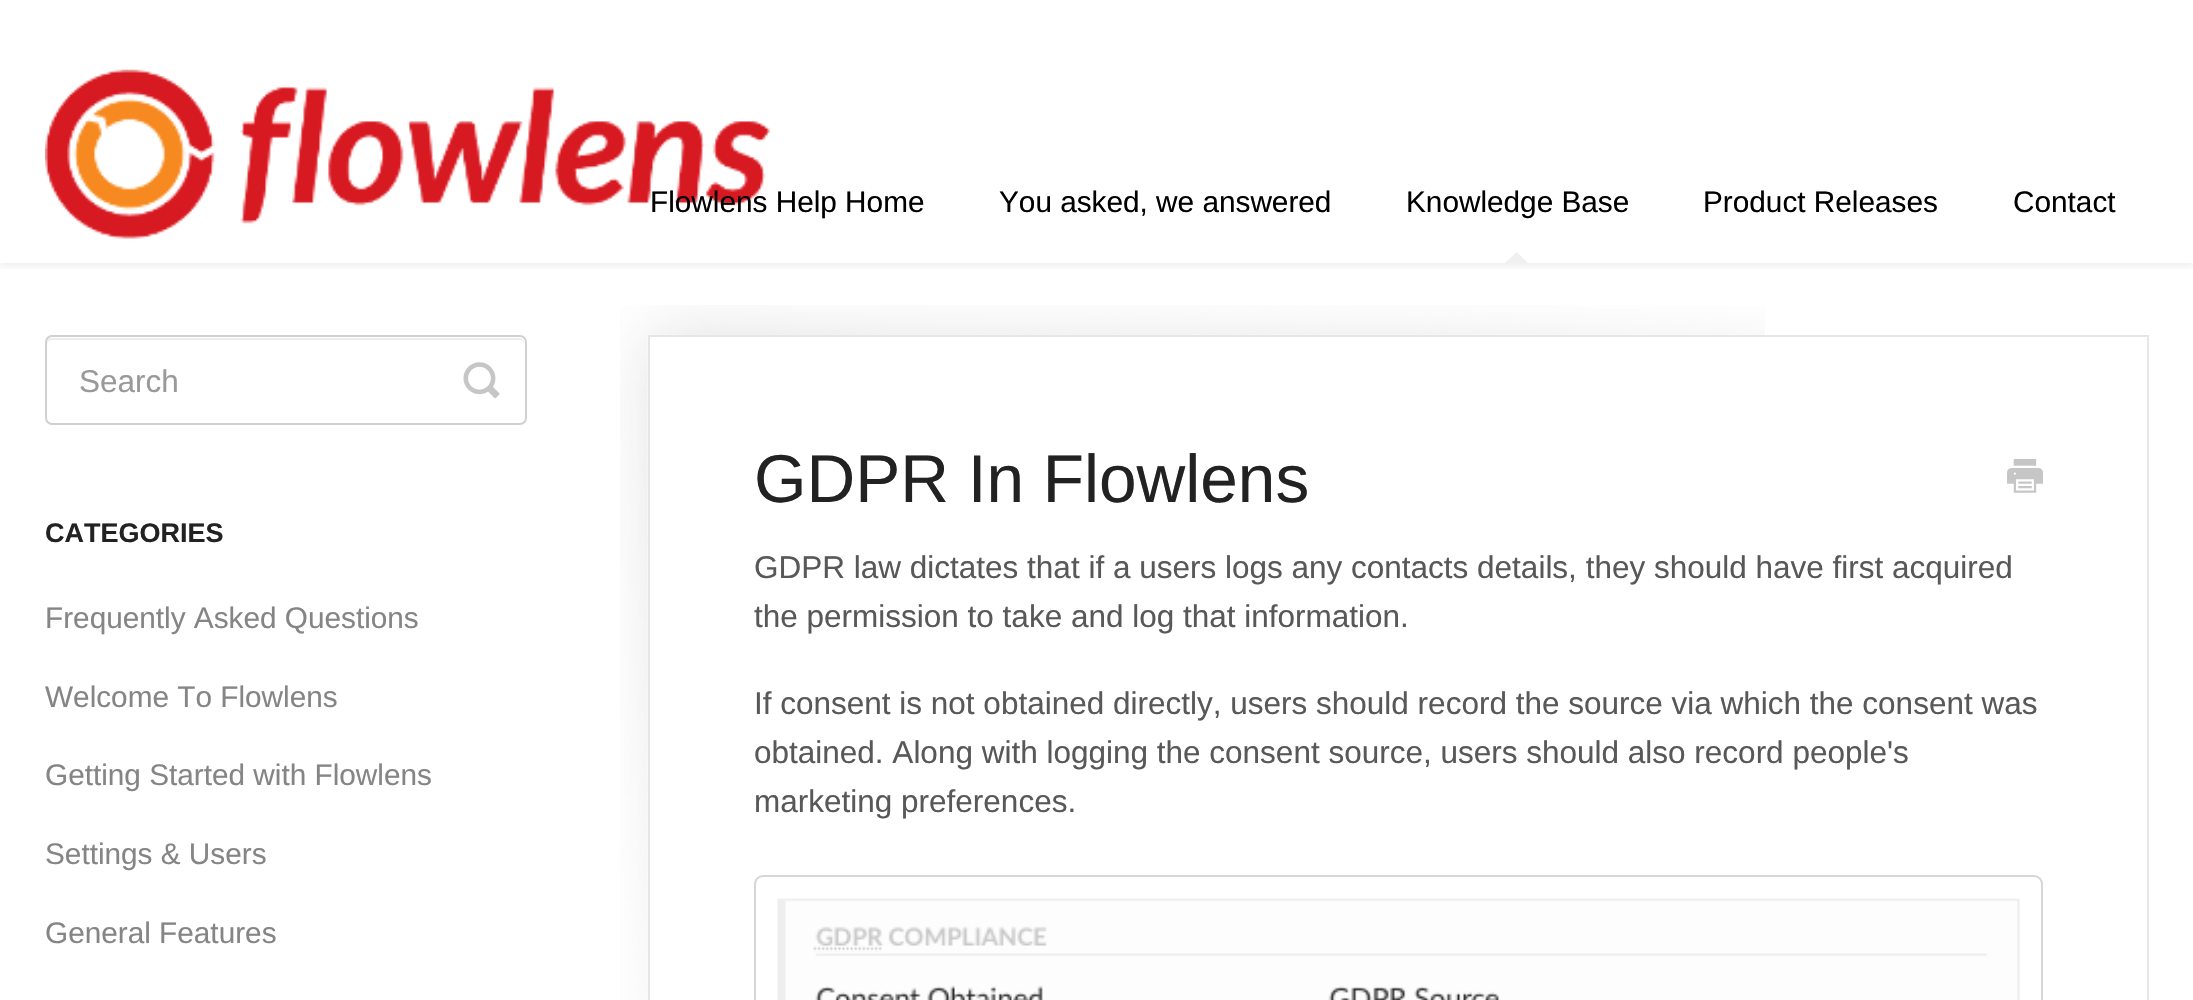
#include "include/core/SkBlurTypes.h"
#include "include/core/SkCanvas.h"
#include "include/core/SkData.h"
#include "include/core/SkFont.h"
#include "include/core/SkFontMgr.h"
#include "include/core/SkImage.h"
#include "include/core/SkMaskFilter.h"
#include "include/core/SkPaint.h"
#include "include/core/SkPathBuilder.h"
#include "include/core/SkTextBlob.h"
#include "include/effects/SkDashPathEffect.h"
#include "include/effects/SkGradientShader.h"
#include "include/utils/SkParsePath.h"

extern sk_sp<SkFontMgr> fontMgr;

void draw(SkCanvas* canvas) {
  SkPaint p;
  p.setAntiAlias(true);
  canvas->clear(SK_ColorWHITE);
  canvas->save();
  canvas->clipRect(SkRect::MakeLTRB(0, 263, 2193, 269));
  p.setColor(SkColorSetARGB(18, 0, 0, 0));
  p.setMaskFilter(SkMaskFilter::MakeBlur(kNormal_SkBlurStyle, 4.5f));
  canvas->drawRect(SkRect::MakeLTRB(0, 2, 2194, 266), p);
  p.setMaskFilter(nullptr);
  canvas->restore();
  canvas->drawImageRect(SkImages::DeferredFromEncodedData(SkData::MakeFromFileName("images/1.png")), SkRect::MakeLTRB(45, 69, 770, 239), SkSamplingOptions());
  p.setColor(SkColorSetRGB(240, 240, 240));
  canvas->drawPath(SkPathBuilder().moveTo(1528, 263).lineTo(1505, 263).lineTo(1516.5f, 252).close().detach(), p);
  p.setColor(SkColorSetRGB(236, 236, 236));
  canvas->drawPath(SkPathBuilder().moveTo(52, 340).lineTo(520, 340).cubicTo(522, 340, 524, 342, 524, 344).lineTo(524, 343).cubicTo(524, 340, 522, 338, 519, 338).lineTo(52, 338).cubicTo(49, 338, 47, 340, 47, 343).lineTo(47, 344).cubicTo(47, 342, 49, 340, 52, 340).close().detach(), p);
  p.setStyle(SkPaint::kStroke_Style);
  p.setStrokeWidth(2);
  p.setColor(SkColorSetRGB(208, 208, 208));
  canvas->drawRoundRect(SkRect::MakeLTRB(46, 336, 526, 424), 6, 6, p);
  canvas->drawImageRect(SkImages::DeferredFromEncodedData(SkData::MakeFromFileName("images/2.png")), SkRect::MakeLTRB(463, 362, 500, 399), SkSamplingOptions());
  canvas->drawImageRect(SkImages::DeferredFromEncodedData(SkData::MakeFromFileName("images/3.png")), SkRect::MakeLTRB(620, 305, 1765, 1000), SkSamplingOptions());
  p.setColor(SkColorSetRGB(233, 229, 229));
  canvas->drawRect(SkRect::MakeLTRB(649, 336, 2148, 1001), p);
  canvas->drawImageRect(SkImages::DeferredFromEncodedData(SkData::MakeFromFileName("images/4.png")), SkRect::MakeLTRB(2007, 459, 2043, 493), SkSamplingOptions());
  p.setColor(SkColorSetRGB(214, 214, 214));
  canvas->drawRoundRect(SkRect::MakeLTRB(755, 876, 2042, 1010), 8, 8, p);
  canvas->drawImageRect(SkImages::DeferredFromEncodedData(SkData::MakeFromFileName("images/5.png")), SkRect::MakeLTRB(777, 898, 2020, 1000), SkSamplingOptions());
  SkFont font1(fontMgr->matchFamilyStyle("Liberation Sans", SkFontStyle::Normal()), 29.75f);
  font1.setSubpixel(true);
  p.setStyle(SkPaint::kFill_Style);
  p.setColor(SK_ColorBLACK);
  canvas->drawString("Flowlens Help Home", 650, 212, font1, p);
  canvas->drawString("You asked, we answered", 999, 212, font1, p);
  canvas->drawString("Knowledge Base", 1406, 212, font1, p);
  canvas->drawString("Product Releases", 1703, 212, font1, p);
  canvas->drawString("Contact", 2013, 212, font1, p);
  SkFont font2(fontMgr->matchFamilyStyle("Liberation Sans", SkFontStyle::Normal()), 31.5f);
  font2.setSubpixel(true);
  p.setColor(SkColorSetRGB(153, 153, 153));
  canvas->drawString("Search", 79, 392, font2, p);
  SkFont font3(fontMgr->matchFamilyStyle("Liberation Sans", SkFontStyle::Bold()), 27);
  font3.setSubpixel(true);
  p.setColor(SkColorSetRGB(34, 34, 34));
  canvas->drawString("CATEGORIES", 45, 542, font3, p);
  p.setColor(SkColorSetRGB(133, 133, 133));
  canvas->drawString("Frequently Asked Questions", 45, 628, font1, p);
  canvas->drawString("Welcome To Flowlens", 45, 707, font1, p);
  canvas->drawString("Getting Started with Flowlens", 45, 785, font1, p);
  canvas->drawString("Settings & Users", 45, 864, font1, p);
  canvas->drawString("General Features", 45, 943, font1, p);
  SkFont font4(fontMgr->matchFamilyStyle("Liberation Sans", SkFontStyle::Normal()), 67.5f);
  font4.setSubpixel(true);
  p.setColor(SkColorSetRGB(34, 34, 34));
  canvas->drawString("GDPR In Flowlens", 754, 502, font4, p);
  p.setColor(SkColorSetRGB(88, 88, 88));
  canvas->drawString("GDPR law dictates that if a users logs any contacts details, they should have first acquired", 754, 578, font2, p);
  canvas->drawString("the permission to take and log that information.", 754, 627, font2, p);
  canvas->drawString("If consent is not obtained directly, users should record the source via which the consent was", 754, 714, font2, p);
  canvas->drawString("obtained. Along with logging the consent source, users should also record people's", 754, 763, font2, p);
  canvas->drawString("marketing preferences.", 754, 812, font2, p);
}
